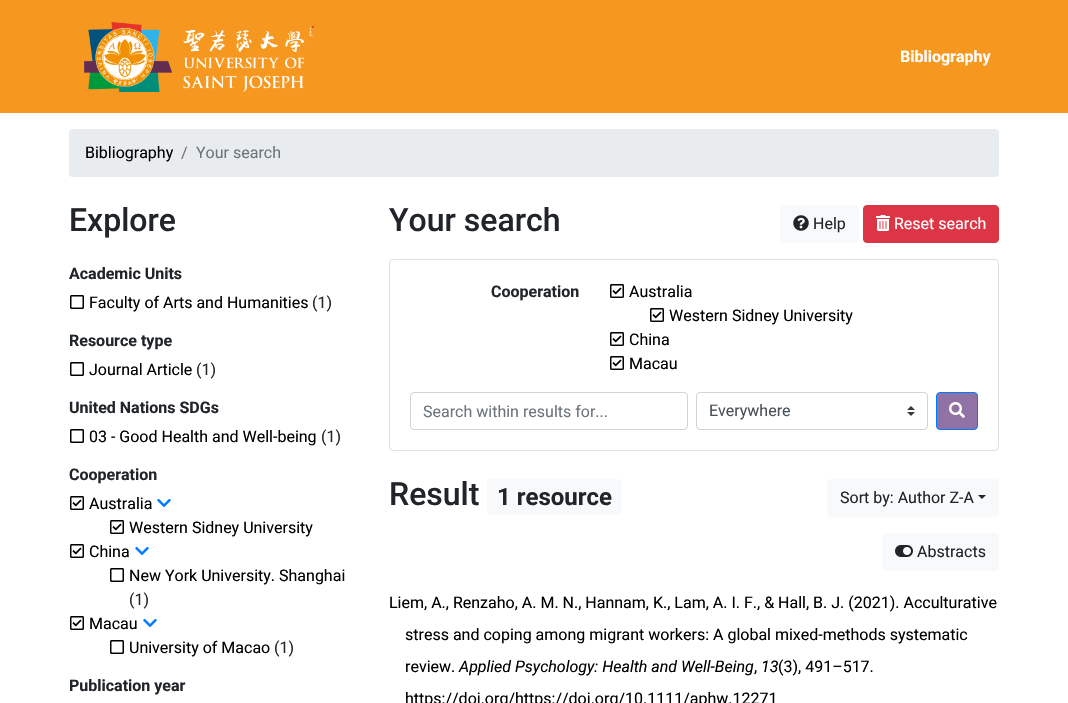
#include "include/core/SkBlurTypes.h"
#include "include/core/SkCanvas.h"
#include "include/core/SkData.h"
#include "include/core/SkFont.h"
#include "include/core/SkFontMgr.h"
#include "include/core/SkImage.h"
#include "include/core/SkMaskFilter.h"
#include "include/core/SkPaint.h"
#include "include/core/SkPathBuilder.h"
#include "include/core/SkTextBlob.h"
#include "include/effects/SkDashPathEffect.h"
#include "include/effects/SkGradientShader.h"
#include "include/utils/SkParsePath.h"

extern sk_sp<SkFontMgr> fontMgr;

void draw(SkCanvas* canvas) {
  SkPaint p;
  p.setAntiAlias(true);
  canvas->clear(SK_ColorWHITE);
  p.setColor(SkColorSetRGB(246, 151, 31));
  canvas->drawRect(SkRect::MakeLTRB(0, 0, 1068, 113), p);
  canvas->drawImageRect(SkImages::DeferredFromEncodedData(SkData::MakeFromFileName("images/1.png")), SkRect::MakeLTRB(84, 22, 314, 92), SkSamplingOptions());
  p.setColor(SkColorSetRGB(233, 236, 239));
  canvas->drawRoundRect(SkRect::MakeLTRB(69, 129, 999, 177), 4, 4, p);
  canvas->drawImageRect(SkImages::DeferredFromEncodedData(SkData::MakeFromFileName("images/2.png")), SkRect::MakeLTRB(70, 295, 84, 309), SkSamplingOptions());
  canvas->drawImageRect(SkImages::DeferredFromEncodedData(SkData::MakeFromFileName("images/2.png")), SkRect::MakeLTRB(70, 362, 84, 376), SkSamplingOptions());
  canvas->drawImageRect(SkImages::DeferredFromEncodedData(SkData::MakeFromFileName("images/2.png")), SkRect::MakeLTRB(70, 429, 84, 443), SkSamplingOptions());
  canvas->drawImageRect(SkImages::DeferredFromEncodedData(SkData::MakeFromFileName("images/3.png")), SkRect::MakeLTRB(70, 496, 84, 510), SkSamplingOptions());
  canvas->drawImageRect(SkImages::DeferredFromEncodedData(SkData::MakeFromFileName("images/4.png")), SkRect::MakeLTRB(157, 498, 171, 508), SkSamplingOptions());
  canvas->drawImageRect(SkImages::DeferredFromEncodedData(SkData::MakeFromFileName("images/3.png")), SkRect::MakeLTRB(110, 520, 124, 534), SkSamplingOptions());
  canvas->drawImageRect(SkImages::DeferredFromEncodedData(SkData::MakeFromFileName("images/3.png")), SkRect::MakeLTRB(70, 544, 84, 558), SkSamplingOptions());
  canvas->drawImageRect(SkImages::DeferredFromEncodedData(SkData::MakeFromFileName("images/4.png")), SkRect::MakeLTRB(135, 546, 149, 556), SkSamplingOptions());
  canvas->drawImageRect(SkImages::DeferredFromEncodedData(SkData::MakeFromFileName("images/2.png")), SkRect::MakeLTRB(110, 568, 124, 582), SkSamplingOptions());
  canvas->drawImageRect(SkImages::DeferredFromEncodedData(SkData::MakeFromFileName("images/3.png")), SkRect::MakeLTRB(70, 616, 84, 630), SkSamplingOptions());
  canvas->drawImageRect(SkImages::DeferredFromEncodedData(SkData::MakeFromFileName("images/4.png")), SkRect::MakeLTRB(143, 618, 157, 628), SkSamplingOptions());
  canvas->drawImageRect(SkImages::DeferredFromEncodedData(SkData::MakeFromFileName("images/2.png")), SkRect::MakeLTRB(110, 640, 124, 654), SkSamplingOptions());
  p.setColor(SkColorSetRGB(248, 249, 250));
  canvas->drawRoundRect(SkRect::MakeLTRB(780, 205, 859, 243), 4, 4, p);
  canvas->drawImageRect(SkImages::DeferredFromEncodedData(SkData::MakeFromFileName("images/5.png")), SkRect::MakeLTRB(793, 215, 809, 231), SkSamplingOptions());
  p.setColor(SkColorSetRGB(220, 53, 69));
  canvas->drawRoundRect(SkRect::MakeLTRB(863.5f, 205.5f, 998.5f, 242.5f), 3.5f, 3.5f, p);
  p.setStyle(SkPaint::kStroke_Style);
  p.setStrokeWidth(1);
  canvas->drawRoundRect(SkRect::MakeLTRB(863.5f, 205.5f, 998.5f, 242.5f), 3.5f, 3.5f, p);
  canvas->drawImageRect(SkImages::DeferredFromEncodedData(SkData::MakeFromFileName("images/6.png")), SkRect::MakeLTRB(876, 215, 890, 231), SkSamplingOptions());
  p.setColor(SkColorSetRGB(223, 223, 223));
  canvas->drawRoundRect(SkRect::MakeLTRB(389.5f, 259.5f, 998.5f, 450.5f), 3.5f, 3.5f, p);
  canvas->drawImageRect(SkImages::DeferredFromEncodedData(SkData::MakeFromFileName("images/3.png")), SkRect::MakeLTRB(610, 284, 624, 298), SkSamplingOptions());
  canvas->drawImageRect(SkImages::DeferredFromEncodedData(SkData::MakeFromFileName("images/3.png")), SkRect::MakeLTRB(650, 308, 664, 322), SkSamplingOptions());
  canvas->drawImageRect(SkImages::DeferredFromEncodedData(SkData::MakeFromFileName("images/3.png")), SkRect::MakeLTRB(610, 332, 624, 346), SkSamplingOptions());
  canvas->drawImageRect(SkImages::DeferredFromEncodedData(SkData::MakeFromFileName("images/3.png")), SkRect::MakeLTRB(610, 356, 624, 370), SkSamplingOptions());
  p.setColor(SkColorSetRGB(206, 212, 218));
  canvas->drawRoundRect(SkRect::MakeLTRB(410.5f, 392.5f, 687.5f, 429.5f), 3.5f, 3.5f, p);
  canvas->drawImageRect(SkImages::DeferredFromEncodedData(SkData::MakeFromFileName("images/7.png")), SkRect::MakeLTRB(907, 406, 915, 416), SkSamplingOptions());
  canvas->drawRoundRect(SkRect::MakeLTRB(696.5f, 392.5f, 927.5f, 429.5f), 3.5f, 3.5f, p);
  p.setStyle(SkPaint::kFill_Style);
  p.setColor(SkColorSetRGB(144, 114, 164));
  canvas->drawRoundRect(SkRect::MakeLTRB(936.5f, 392.5f, 977.5f, 429.5f), 3.5f, 3.5f, p);
  p.setStyle(SkPaint::kStroke_Style);
  p.setColor(SkColorSetRGB(0, 123, 255));
  canvas->drawRoundRect(SkRect::MakeLTRB(936.5f, 392.5f, 977.5f, 429.5f), 3.5f, 3.5f, p);
  canvas->drawImageRect(SkImages::DeferredFromEncodedData(SkData::MakeFromFileName("images/8.png")), SkRect::MakeLTRB(949, 402, 965, 418), SkSamplingOptions());
  p.setStyle(SkPaint::kFill_Style);
  p.setColor(SkColorSetRGB(248, 249, 250));
  canvas->drawRoundRect(SkRect::MakeLTRB(487, 479, 622, 515), 4, 4, p);
  canvas->drawRoundRect(SkRect::MakeLTRB(827, 479, 999, 517), 4, 4, p);
  p.setColor(SkColorSetRGB(33, 37, 41));
  canvas->drawPath(SkPathBuilder().moveTo(978, 495).lineTo(986, 495).lineTo(982, 499).close().detach(), p);
  p.setColor(SkColorSetRGB(248, 249, 250));
  canvas->drawRoundRect(SkRect::MakeLTRB(882, 533, 999, 571), 4, 4, p);
  canvas->drawImageRect(SkImages::DeferredFromEncodedData(SkData::MakeFromFileName("images/9.png")), SkRect::MakeLTRB(895, 545, 913, 557), SkSamplingOptions());
  SkFont font1(fontMgr->matchFamilyStyle("Roboto", SkFontStyle::Bold()), 16);
  font1.setSubpixel(true);
  p.setColor(SK_ColorWHITE);
  canvas->drawString("Bibliography", 900, 62, font1, p);
  SkFont font2(fontMgr->matchFamilyStyle("Roboto", SkFontStyle::Normal()), 16);
  font2.setSubpixel(true);
  p.setColor(SK_ColorBLACK);
  canvas->drawString("Bibliography", 85, 158, font2, p);
  p.setColor(SkColorSetRGB(108, 117, 125));
  canvas->drawString("/", 181, 158, font2, p);
  canvas->drawString("Your search", 196, 158, font2, p);
  SkFont font3(fontMgr->matchFamilyStyle("Roboto", SkFontStyle(500, SkFontStyle::kNormal_Width, SkFontStyle::kUpright_Slant)), 32);
  font3.setSubpixel(true);
  p.setColor(SkColorSetRGB(33, 37, 41));
  canvas->drawString("Explore", 69, 231, font3, p);
  canvas->drawString("Academic Units", 69, 279, font1, p);
  p.setColor(SK_ColorBLACK);
  canvas->drawString("Faculty of Arts and Humanities", 89, 308, font2, p);
  p.setColor(SkColorSetRGB(33, 37, 41));
  canvas->drawString("(1)", 312, 308, font2, p);
  canvas->drawString("Resource type", 69, 346, font1, p);
  p.setColor(SK_ColorBLACK);
  canvas->drawString("Journal Article", 89, 375, font2, p);
  p.setColor(SkColorSetRGB(33, 37, 41));
  canvas->drawString("(1)", 196, 375, font2, p);
  canvas->drawString("United Nations SDGs", 69, 413, font1, p);
  p.setColor(SK_ColorBLACK);
  canvas->drawString("03 - Good Health and Well-being", 89, 442, font2, p);
  p.setColor(SkColorSetRGB(33, 37, 41));
  canvas->drawString("(1)", 321, 442, font2, p);
  canvas->drawString("Cooperation", 69, 480, font1, p);
  p.setColor(SK_ColorBLACK);
  canvas->drawString("Australia", 89, 509, font2, p);
  canvas->drawString("Western Sidney University", 129, 533, font2, p);
  canvas->drawString("China", 89, 557, font2, p);
  canvas->drawString("New York University. Shanghai", 129, 581, font2, p);
  p.setColor(SkColorSetRGB(33, 37, 41));
  canvas->drawString("(1)", 129, 605, font2, p);
  p.setColor(SK_ColorBLACK);
  canvas->drawString("Macau", 89, 629, font2, p);
  canvas->drawString("University of Macao", 129, 653, font2, p);
  p.setColor(SkColorSetRGB(33, 37, 41));
  canvas->drawString("(1)", 274, 653, font2, p);
  canvas->drawString("Publication year", 69, 691, font1, p);
  canvas->drawString("Your search", 389, 231, font3, p);
  canvas->drawString("Help", 813, 229, font2, p);
  p.setColor(SK_ColorWHITE);
  canvas->drawString("Reset search", 894, 229, font2, p);
  p.setColor(SkColorSetRGB(33, 37, 41));
  canvas->drawString("Cooperation", 491, 297, font1, p);
  p.setColor(SK_ColorBLACK);
  canvas->drawString("Australia", 629, 297, font2, p);
  canvas->drawString("Western Sidney University", 669, 321, font2, p);
  canvas->drawString("China", 629, 345, font2, p);
  canvas->drawString("Macau", 629, 369, font2, p);
  p.setColor(SkColorSetRGB(108, 117, 125));
  canvas->drawString("Search within results for...", 423, 417, font2, p);
  p.setColor(SkColorSetRGB(73, 80, 87));
  canvas->drawString("Everywhere", 709, 416, font2, p);
  p.setColor(SkColorSetRGB(33, 37, 41));
  canvas->drawString("Result", 389, 505, font3, p);
  SkFont font4(fontMgr->matchFamilyStyle("Roboto", SkFontStyle::Bold()), 24);
  font4.setSubpixel(true);
  canvas->drawString("1 resource", 497, 505, font4, p);
  canvas->drawString("Sort by: Author Z-A", 840, 503, font2, p);
  canvas->drawString("Abstracts", 917, 557, font2, p);
  p.setColor(SK_ColorBLACK);
  canvas->drawString("Liem, A., Renzaho, A. M. N., Hannam, K., Lam, A. I. F., & Hall, B. J. (2021). Acculturative", 389, 608, font2, p);
  canvas->drawString("stress and coping among migrant workers: A global mixed-methods systematic", 405, 640, font2, p);
  canvas->drawString("review.", 405, 672, font2, p);
  SkFont font5(fontMgr->matchFamilyStyle("Roboto", SkFontStyle::Italic()), 16);
  font5.setSubpixel(true);
  canvas->drawString("Applied Psychology: Health and Well-Being", 459, 672, font5, p);
  canvas->drawString(",", 754, 672, font2, p);
  canvas->drawString("13", 761, 672, font5, p);
  canvas->drawString("(3), 491–517.", 778, 672, font2, p);
  canvas->drawString("https://doi.org/https://doi.org/10.1111/aphw.12271", 405, 704, font2, p);
}
